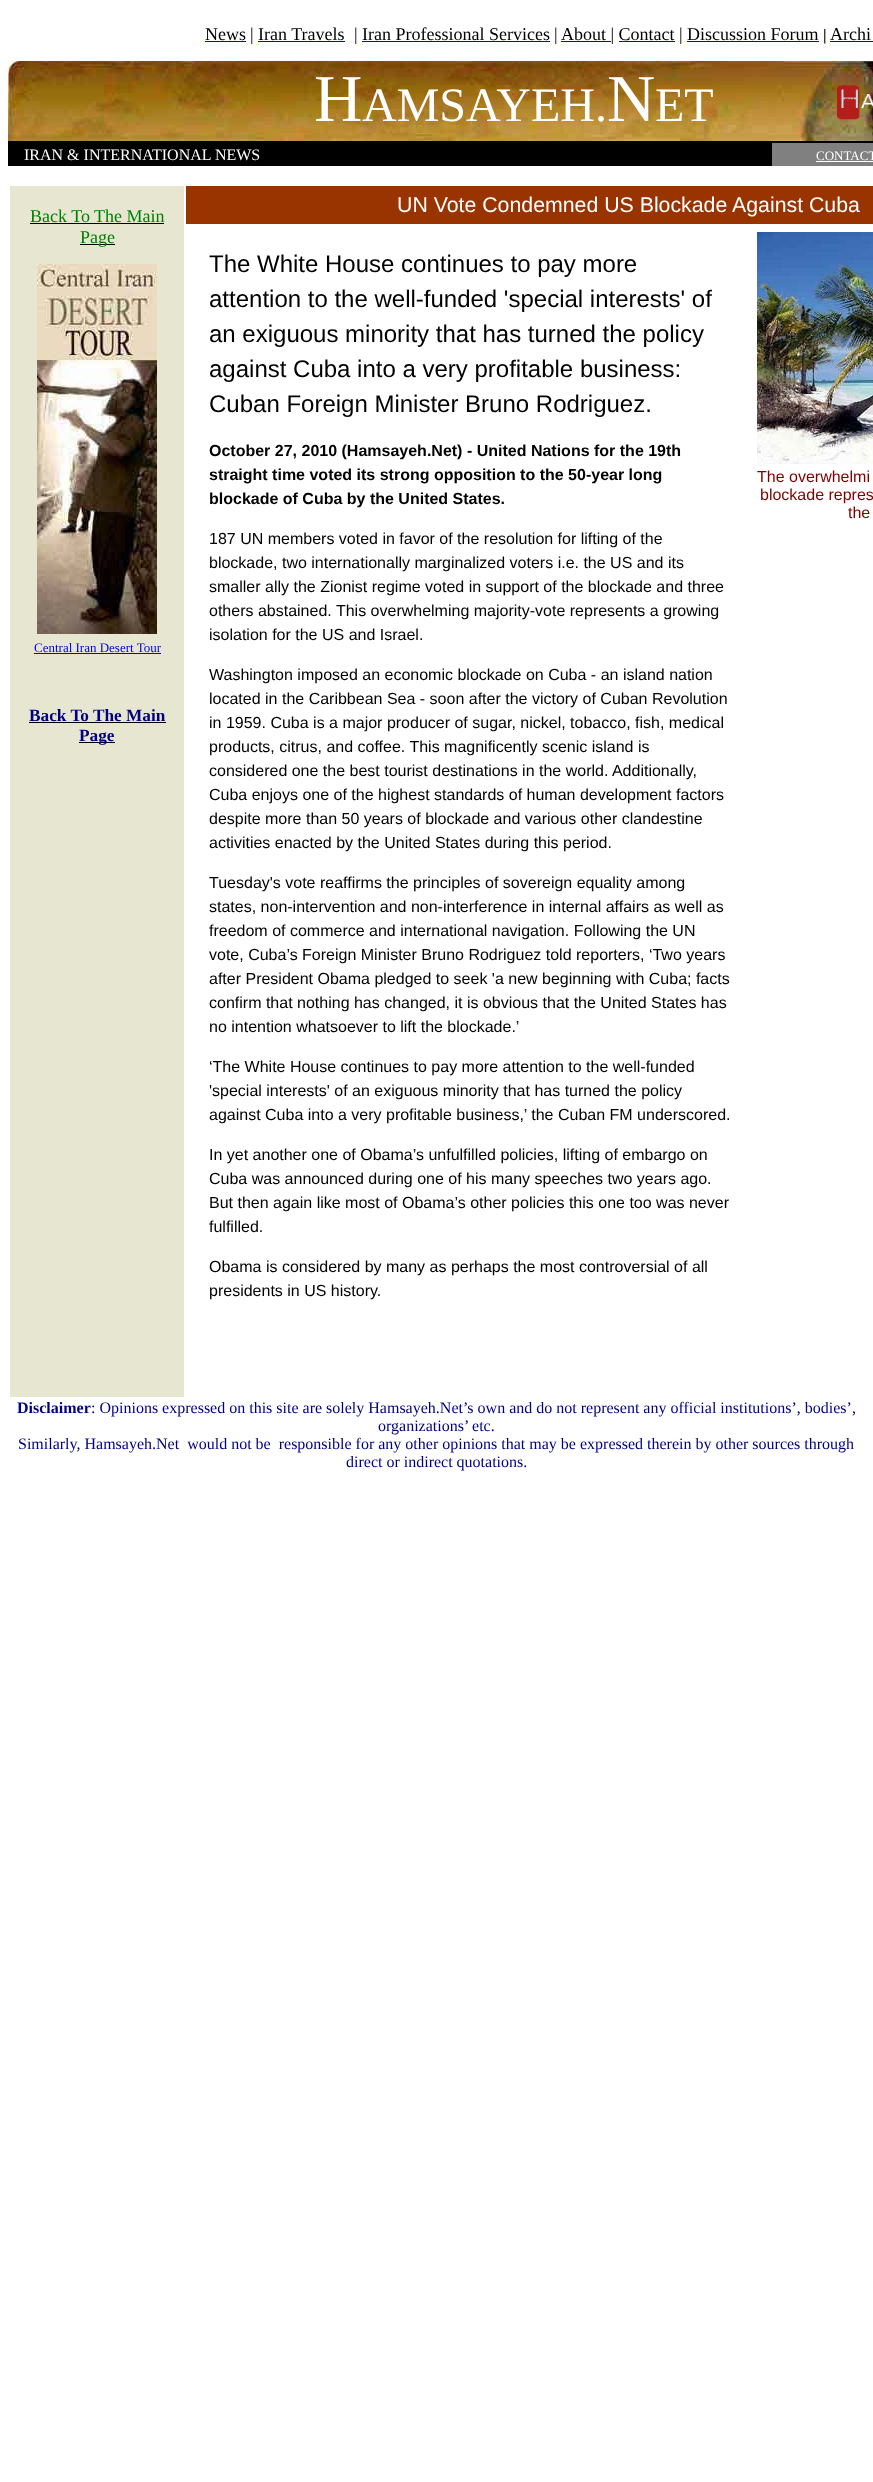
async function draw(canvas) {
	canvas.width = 873;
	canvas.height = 2482;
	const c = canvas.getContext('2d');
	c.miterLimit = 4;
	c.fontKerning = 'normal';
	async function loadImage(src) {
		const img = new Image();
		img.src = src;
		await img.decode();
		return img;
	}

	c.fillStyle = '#fff';
	c.fillRect(0, 0, 873, 2482);
	c.font = '18px Liberation Serif';
	c.fillStyle = '#000';
	c.fillText('News', 205, 40);
	c.fillStyle = '#00e';
	c.fillRect(205, 41, 41, 1);
	c.fillStyle = '#000';
	c.fillText('| Iran Travels', 250, 40);
	c.fillStyle = '#00e';
	c.fillRect(258, 41, 87, 1);
	c.fillStyle = '#000';
	c.fillText('| Iran Professional Services', 354, 40);
	c.fillStyle = '#00e';
	c.fillRect(362, 41, 188, 1);
	c.fillStyle = '#000';
	c.fillText('|', 554, 40);
	c.fillStyle = '#00e';
	c.fillRect(561, 41, 50, 1);
	c.fillStyle = '#000';
	c.fillText('About | Contact |', 561, 40);
	c.fillStyle = '#00e';
	c.fillRect(619, 41, 56, 1);
	c.fillStyle = '#000';
	c.fillText('Discussion Forum', 687, 40);
	c.fillStyle = '#00e';
	c.fillRect(687, 41, 132, 1);
	c.font = 'bold 16px Liberation Serif';
	c.fillStyle = '#000';
	c.fillText('|', 823, 40);
	c.font = '18px Liberation Serif';
	c.fillText('Archi', 830, 40);
	c.fillStyle = '#00e';
	c.fillRect(830, 41, 43, 1);
	c.drawImage(await loadImage('img1.png'), 8, 61, 865, 80);
	c.fillStyle = '#000';
	c.fillRect(8, 141, 865, 2);
	c.font = '67px Liberation Serif';
	c.fillStyle = '#fff';
	c.fillText('H', 314, 121);
	c.font = '48px Liberation Serif';
	c.fillText('AMSAYEH.', 362, 121);
	c.font = '67px Liberation Serif';
	c.fillText('N', 607, 121);
	c.font = '48px Liberation Serif';
	c.fillText('ET', 655, 121);
	c.drawImage(await loadImage('img2.png'), 837, 85, 36, 35);
	c.fillStyle = '#000';
	c.fillRect(8, 143, 764, 23);
	c.font = '16px Liberation Serif';
	c.fillStyle = '#fff';
	c.fillText('IRAN & INTERNATIONAL NEWS', 24, 160);
	c.fillStyle = '#808080';
	c.fillRect(772, 143, 101, 23);
	c.font = '13px Liberation Serif';
	c.fillStyle = '#fff';
	c.fillText('CONTACT', 816, 160);
	c.fillRect(816, 161, 57, 1);
	c.fillStyle = '#930';
	c.fillRect(186, 186, 687, 38);
	c.font = '21.3px Liberation Sans';
	c.fillStyle = '#fff';
	c.fillText('UN Vote Condemned US Blockade Against Cuba', 397, 212);
	c.fillStyle = '#e7e6d1';
	c.fillRect(10, 186, 174, 1211);
	c.font = '18px Liberation Serif';
	c.fillStyle = '#008000';
	c.fillText('Back To The Main', 30, 222);
	c.fillStyle = '#000';
	c.fillRect(30, 223, 134, 1);
	c.fillRect(80, 244, 35, 1);
	c.fillStyle = '#008000';
	c.fillText('Page', 80, 243);
	c.drawImage(await loadImage('img3.png'), 37, 264, 120, 370);
	c.font = '13px Liberation Serif';
	c.fillStyle = '#00e';
	c.fillText('Central Iran Desert Tour', 34, 652);
	c.fillRect(34, 653, 127, 1);
	c.font = 'bold 17.25px Liberation Serif';
	c.fillStyle = '#000080';
	c.fillText('Back To The Main', 29, 721);
	c.fillStyle = '#000';
	c.fillRect(29, 722, 137, 1);
	c.fillRect(79, 742, 36, 1);
	c.fillStyle = '#000080';
	c.fillText('Page', 79, 741);
	c.font = '24px Liberation Sans';
	c.fillStyle = '#000';
	for (const [text, x, y] of [
		['The White House continues to pay more', 209, 272],
		['attention to the well-funded \'special interests\' of', 209, 307],
		['an exiguous minority that has turned the policy', 209, 342],
		['against Cuba into a very profitable business:', 209, 377],
		['Cuban Foreign Minister Bruno Rodriguez.', 209, 412],
	]) {
		c.fillText(text, x, y);
	}
	c.font = 'bold 16px Liberation Sans';
	for (const [text, x, y] of [
		['October 27, 2010 (Hamsayeh.Net) - United Nations for the 19th', 209, 456],
		['straight time voted its strong opposition to the 50-year long', 209, 480],
		['blockade of Cuba by the United States.', 209, 504],
	]) {
		c.fillText(text, x, y);
	}
	c.font = '16px Liberation Sans';
	for (const [text, x, y] of [
		['187 UN members voted in favor of the resolution for lifting of the', 209, 544],
		['blockade, two internationally marginalized voters i.e. the US and its', 209, 568],
		['smaller ally the Zionist regime voted in support of the blockade and three', 209, 592],
		['others abstained. This overwhelming majority-vote represents a growing', 209, 616],
		['isolation for the US and Israel.', 209, 640],
		['Washington imposed an economic blockade on Cuba - an island nation', 209, 680],
		['located in the Caribbean Sea - soon after the victory of Cuban Revolution', 209, 704],
		['in 1959. Cuba is a major producer of sugar, nickel, tobacco, fish, medical', 209, 728],
		['products, citrus, and coffee. This magnificently scenic island is', 209, 752],
		['considered one the best tourist destinations in the world. Additionally,', 209, 776],
		['Cuba enjoys one of the highest standards of human development factors', 209, 800],
		['despite more than 50 years of blockade and various other clandestine', 209, 824],
		['activities enacted by the United States during this period.', 209, 848],
		['Tuesday\'s vote reaffirms the principles of sovereign equality among', 209, 888],
		['states, non-intervention and non-interference in internal affairs as well as', 209, 912],
		['freedom of commerce and international navigation. Following the UN', 209, 936],
		['vote, Cuba’s Foreign Minister Bruno Rodriguez told reporters, ‘Two years', 209, 960],
		['after President Obama pledged to seek \'a new beginning with Cuba; facts', 209, 984],
		['confirm that nothing has changed, it is obvious that the United States has', 209, 1008],
		['no intention whatsoever to lift the blockade.’', 209, 1032],
		['‘The White House continues to pay more attention to the well-funded', 209, 1072],
		['\'special interests\' of an exiguous minority that has turned the policy', 209, 1096],
		['against Cuba into a very profitable business,’ the Cuban FM underscored.', 209, 1120],
		['In yet another one of Obama’s unfulfilled policies, lifting of embargo on', 209, 1160],
		['Cuba was announced during one of his many speeches two years ago.', 209, 1184],
		['But then again like most of Obama’s other policies this one too was never', 209, 1208],
		['fulfilled.', 209, 1232],
		['Obama is considered by many as perhaps the most controversial of all', 209, 1272],
		['presidents in US history.', 209, 1296],
	]) {
		c.fillText(text, x, y);
	}
	c.drawImage(await loadImage('img4.png'), 757, 232, 116, 232);
	c.fillStyle = '#800000';
	for (const [text, x, y] of [
		['The overwhelmi', 757, 482],
		['blockade repres', 760, 500],
		['the', 848, 518],
	]) {
		c.fillText(text, x, y);
	}
	c.font = 'bold 16px Liberation Serif';
	c.fillStyle = '#000080';
	c.fillText('Disclaimer', 17, 1413);
	c.font = '16px Liberation Serif';
	for (const [text, x, y] of [
		[': Opinions expressed on this site are solely Hamsayeh.Net’s own and do not represent any official institutions’, bodies’,', 91, 1413],
		['organizations’ etc.', 378, 1431],
		['Similarly, Hamsayeh.Net  would not be  responsible for any other opinions that may be expressed therein by other sources through', 18, 1449],
		['direct or indirect quotations.', 346, 1467],
	]) {
		c.fillText(text, x, y);
	}
}

draw(document.querySelector('canvas'));
